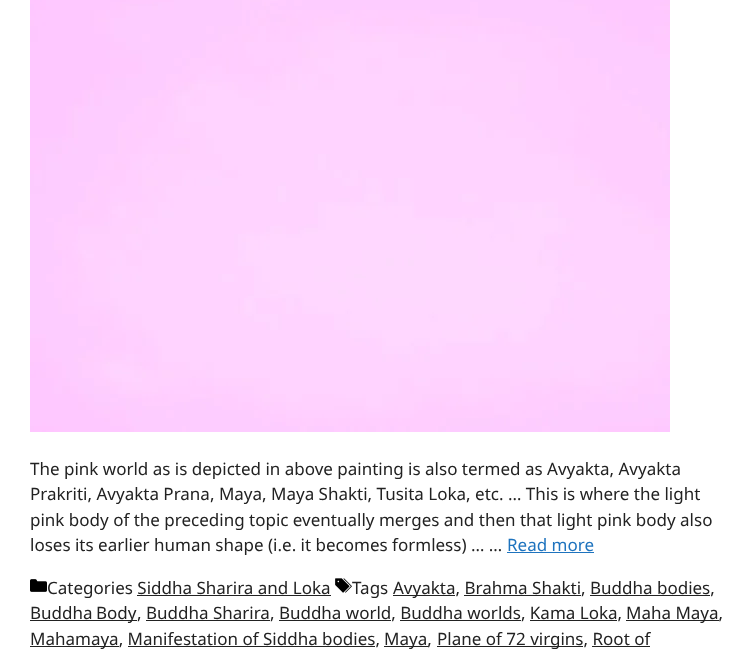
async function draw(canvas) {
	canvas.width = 754;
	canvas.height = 651;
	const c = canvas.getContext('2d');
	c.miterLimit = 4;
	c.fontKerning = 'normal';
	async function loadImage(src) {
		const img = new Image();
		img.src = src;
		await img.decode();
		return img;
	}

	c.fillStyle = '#fff';
	c.fillRect(0, 0, 754, 651);
	c.drawImage(await loadImage('img1.png'), 30, 0, 640, 432);
	c.font = '17px Noto Sans';
	c.fillStyle = '#222';
	for (const [text, x, y] of [
		['The pink world as is depicted in above painting is also termed as Avyakta, Avyakta', 30, 475],
		['Prakriti, Avyakta Prana, Maya, Maya Shakti, Tusita Loka, etc. … This is where the light', 30, 500],
		['pink body of the preceding topic eventually merges and then that light pink body also', 30, 526],
		['loses its earlier human shape (i.e. it becomes formless) … …', 30, 551],
	]) {
		c.fillText(text, x, y);
	}
	c.fillStyle = '#1e73be';
	c.fillText('Read more', 507, 551);
	c.fillRect(507, 552, 87, 1);
	c.drawImage(await loadImage('img2.png'), 30, 579, 17, 13);
	c.fillStyle = '#222';
	c.fillText('Categories Siddha Sharira and Loka', 47, 594);
	c.fillRect(137, 595, 194, 1);
	c.drawImage(await loadImage('img3.png'), 335, 578, 17, 15);
	c.fillText('Tags', 352, 594);
	c.fillRect(393, 595, 62, 1);
	c.fillText('Avyakta, Brahma Shakti, Buddha bodies,', 393, 594);
	for (const [x, y, w, h, color] of [
		[464, 595, 117, 1, '#222'],
		[590, 595, 120, 1, '#222'],
		[30, 620, 107, 1, '#222'],
	]) {
		c.fillStyle = color;
		c.fillRect(x, y, w, h);
	}
	c.wordSpacing = '-1px';
	c.fillText('Buddha Body', 30, 619);
	c.wordSpacing = '0px';
	c.fillText(', Buddha Sharira, Buddha world, Buddha worlds, Kama Loka,', 137, 619);
	for (const [x, y, w, h, color] of [
		[146, 620, 124, 1, '#222'],
		[279, 620, 112, 1, '#222'],
		[400, 620, 121, 1, '#222'],
		[530, 620, 87, 1, '#222'],
		[626, 620, 93, 1, '#222'],
	]) {
		c.fillStyle = color;
		c.fillRect(x, y, w, h);
	}
	c.fillText('Maha Maya,', 626, 619);
	c.fillRect(30, 646, 89, 1);
	c.fillText('Mahamaya, Manifestation of Siddha bodies,', 30, 645);
	c.fillRect(128, 646, 247, 1);
	c.fillRect(384, 646, 44, 1);
	c.fillText('Maya,', 384, 645);
	c.fillRect(437, 646, 146, 1);
	c.fillText('Plane of 72 virgins, Root of', 437, 645);
	c.fillRect(592, 646, 58, 1);
}

draw(document.querySelector('canvas'));
